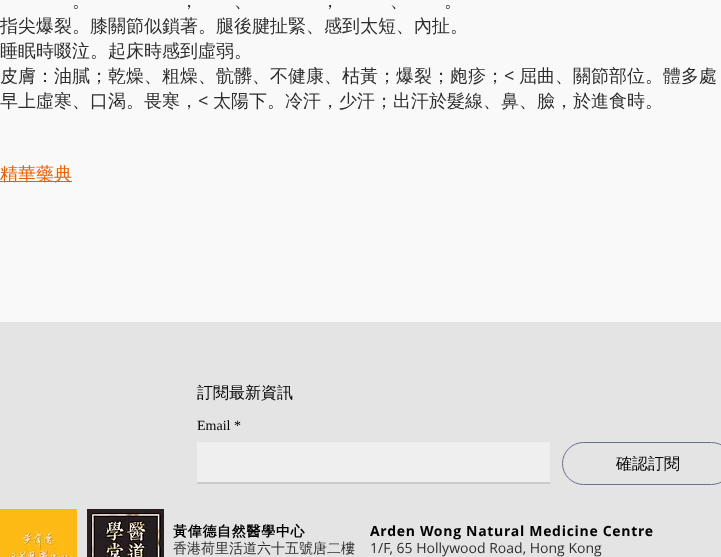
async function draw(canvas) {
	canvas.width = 721;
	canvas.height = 557;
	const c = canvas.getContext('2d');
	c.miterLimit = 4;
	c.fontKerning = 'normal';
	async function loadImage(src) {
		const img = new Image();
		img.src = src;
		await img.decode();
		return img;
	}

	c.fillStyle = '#f9f9f9';
	c.fillRect(0, 0, 721, 557);
	c.font = '500 18px WenQuanYi Zen Hei';
	c.fillStyle = '#2f2e2e';
	for (const [text, x, y] of [
		['。', 72, 7],
		['，', 180, 7],
		['、', 234, 7],
		['，', 321, 7],
		['、', 390, 7],
		['。', 444, 7],
		['指尖爆裂。膝關節似鎖著。腿後腱扯緊、感到太短、內扯。', 0, 32],
		['睡眠時啜泣。起床時感到虛弱。', 0, 57],
		['皮膚：油膩；乾燥、粗燥、骯髒、不健康、枯黃；爆裂；皰疹；', 0, 82],
	]) {
		c.fillText(text, x, y);
	}
	c.font = '18px Open Sans';
	c.fillText('<', 504, 82);
	c.font = '500 18px WenQuanYi Zen Hei';
	c.fillText('屈曲、關節部位。體多處', 519, 82);
	c.fillText('早上虛寒、口渴。畏寒，', 0, 107);
	c.font = '18px Open Sans';
	c.fillText('<', 198, 107);
	c.font = '500 18px WenQuanYi Zen Hei';
	c.fillText('太陽下。冷汗，少汗；出汗於髮線、鼻、臉，於進食時。', 213, 107);
	c.fillStyle = '#e86100';
	c.fillRect(0, 181, 72, 1);
	c.fillText('精華藥典', 0, 180);
	c.fillStyle = '#e4e4e4';
	c.fillRect(0, 322, 721, 235);
	c.font = '500 16px WenQuanYi Zen Hei';
	c.fillStyle = '#000';
	c.fillText('訂閱最新資訊', 197, 398);
	c.font = '14px Liberation Serif';
	c.fillText('Email', 197, 430);
	c.fillText('*', 234, 430);
	c.fillStyle = '#efefef';
	c.fillRect(197, 442, 353, 40);
	c.fillStyle = '#cbcbcb';
	c.fillRect(197, 482, 353, 2);
	c.beginPath();
	c.roundRect(562.5, 442.5, 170, 42, 21);
	c.strokeStyle = '#69718b';
	c.stroke();
	c.font = '500 16px WenQuanYi Zen Hei';
	c.fillStyle = '#000';
	c.fillText('確認訂閱', 616, 469);
	c.drawImage(await loadImage('img1.png'), 0, 509, 77, 48);
	c.drawImage(await loadImage('img2.png'), 87, 509, 77, 48);
	c.letterSpacing = '0.7px';
	c.font = 'bold 14px WenQuanYi Zen Hei';
	c.fillText('黃偉德自然醫學中心', 173, 536);
	c.font = 'bold 14px Open Sans';
	c.fillText('Arden Wong Natural Medicine Centre', 370, 536);
	c.letterSpacing = '0px';
	c.font = '500 14px WenQuanYi Zen Hei';
	c.fillStyle = '#2f2e2e';
	c.fillText('香港荷里活道六十五號唐二樓', 173, 553);
	c.font = '14px Open Sans';
	c.fillText('1/F, 65 Hollywood Road, Hong Kong', 370, 553);
}

draw(document.querySelector('canvas'));
